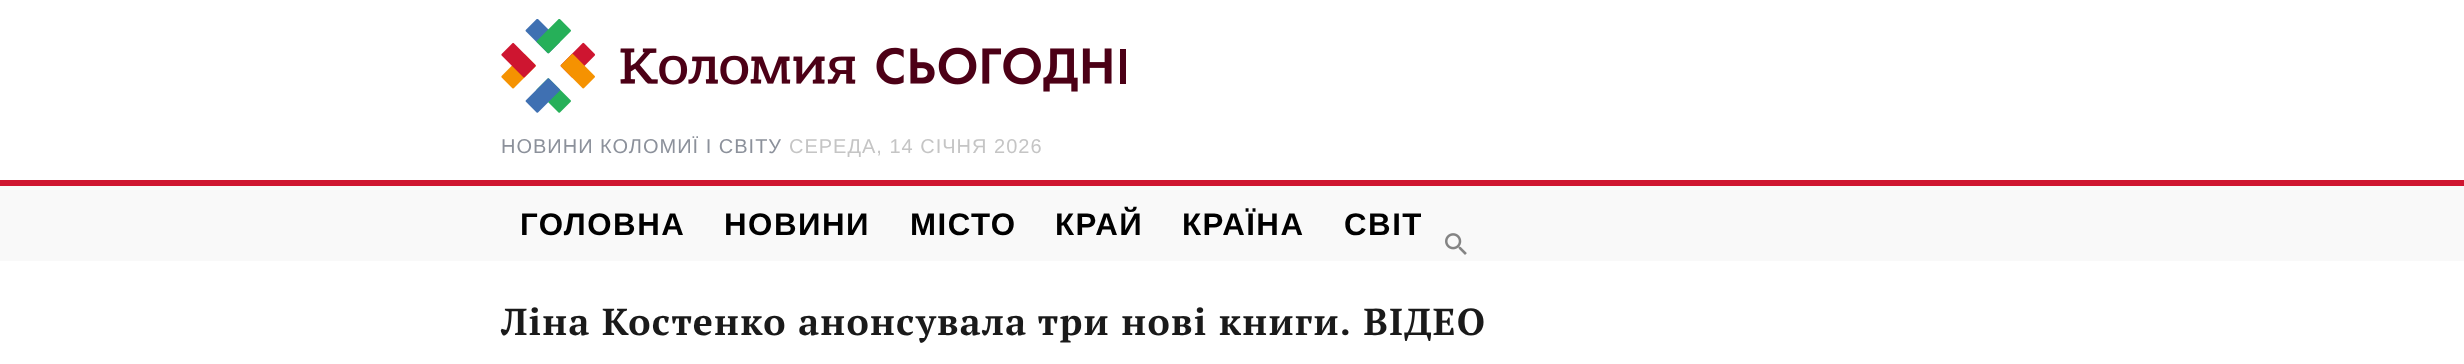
async function draw(canvas) {
	canvas.width = 2464;
	canvas.height = 364;
	const c = canvas.getContext('2d');
	c.miterLimit = 4;
	c.fontKerning = 'normal';
	async function loadImage(src) {
		const img = new Image();
		img.src = src;
		await img.decode();
		return img;
	}

	c.fillStyle = '#fff';
	c.fillRect(0, 0, 2464, 364);
	c.drawImage(await loadImage('img1.png'), 501, 19, 625, 94);
	c.letterSpacing = '1px';
	c.font = '20px Liberation Sans';
	c.fillStyle = '#8c919b';
	c.fillText('НОВИНИ КОЛОМИЇ І СВІТУ', 501, 153);
	c.fillStyle = '#c5c5c5';
	c.fillText('СЕРЕДА, 14 СІЧНЯ 2026', 789, 153);
	c.fillStyle = '#f9f9f9';
	c.fillRect(0, 186, 2464, 75);
	c.fillStyle = '#cf1630';
	c.fillRect(0, 180, 2464, 6);
	c.letterSpacing = '1.5px';
	c.font = 'bold 31.25px Liberation Sans';
	c.fillStyle = '#000';
	for (const [text, x, y] of [
		['ГОЛОВНА', 520, 235],
		['НОВИНИ', 724, 235],
		['МІСТО', 910, 235],
		['КРАЙ', 1055, 235],
		['КРАЇНА', 1182, 235],
		['СВІТ', 1344, 235],
	]) {
		c.fillText(text, x, y);
	}
	c.drawImage(await loadImage('img2.png'), 1445, 233, 22, 22);
	c.letterSpacing = '1.25px';
	c.font = 'bold 37.5px PT Serif';
	c.fillStyle = '#1a1a1a';
	c.fillText('Ліна Костенко анонсувала три нові книги. ВІДЕО', 501, 335);
}

draw(document.querySelector('canvas'));
